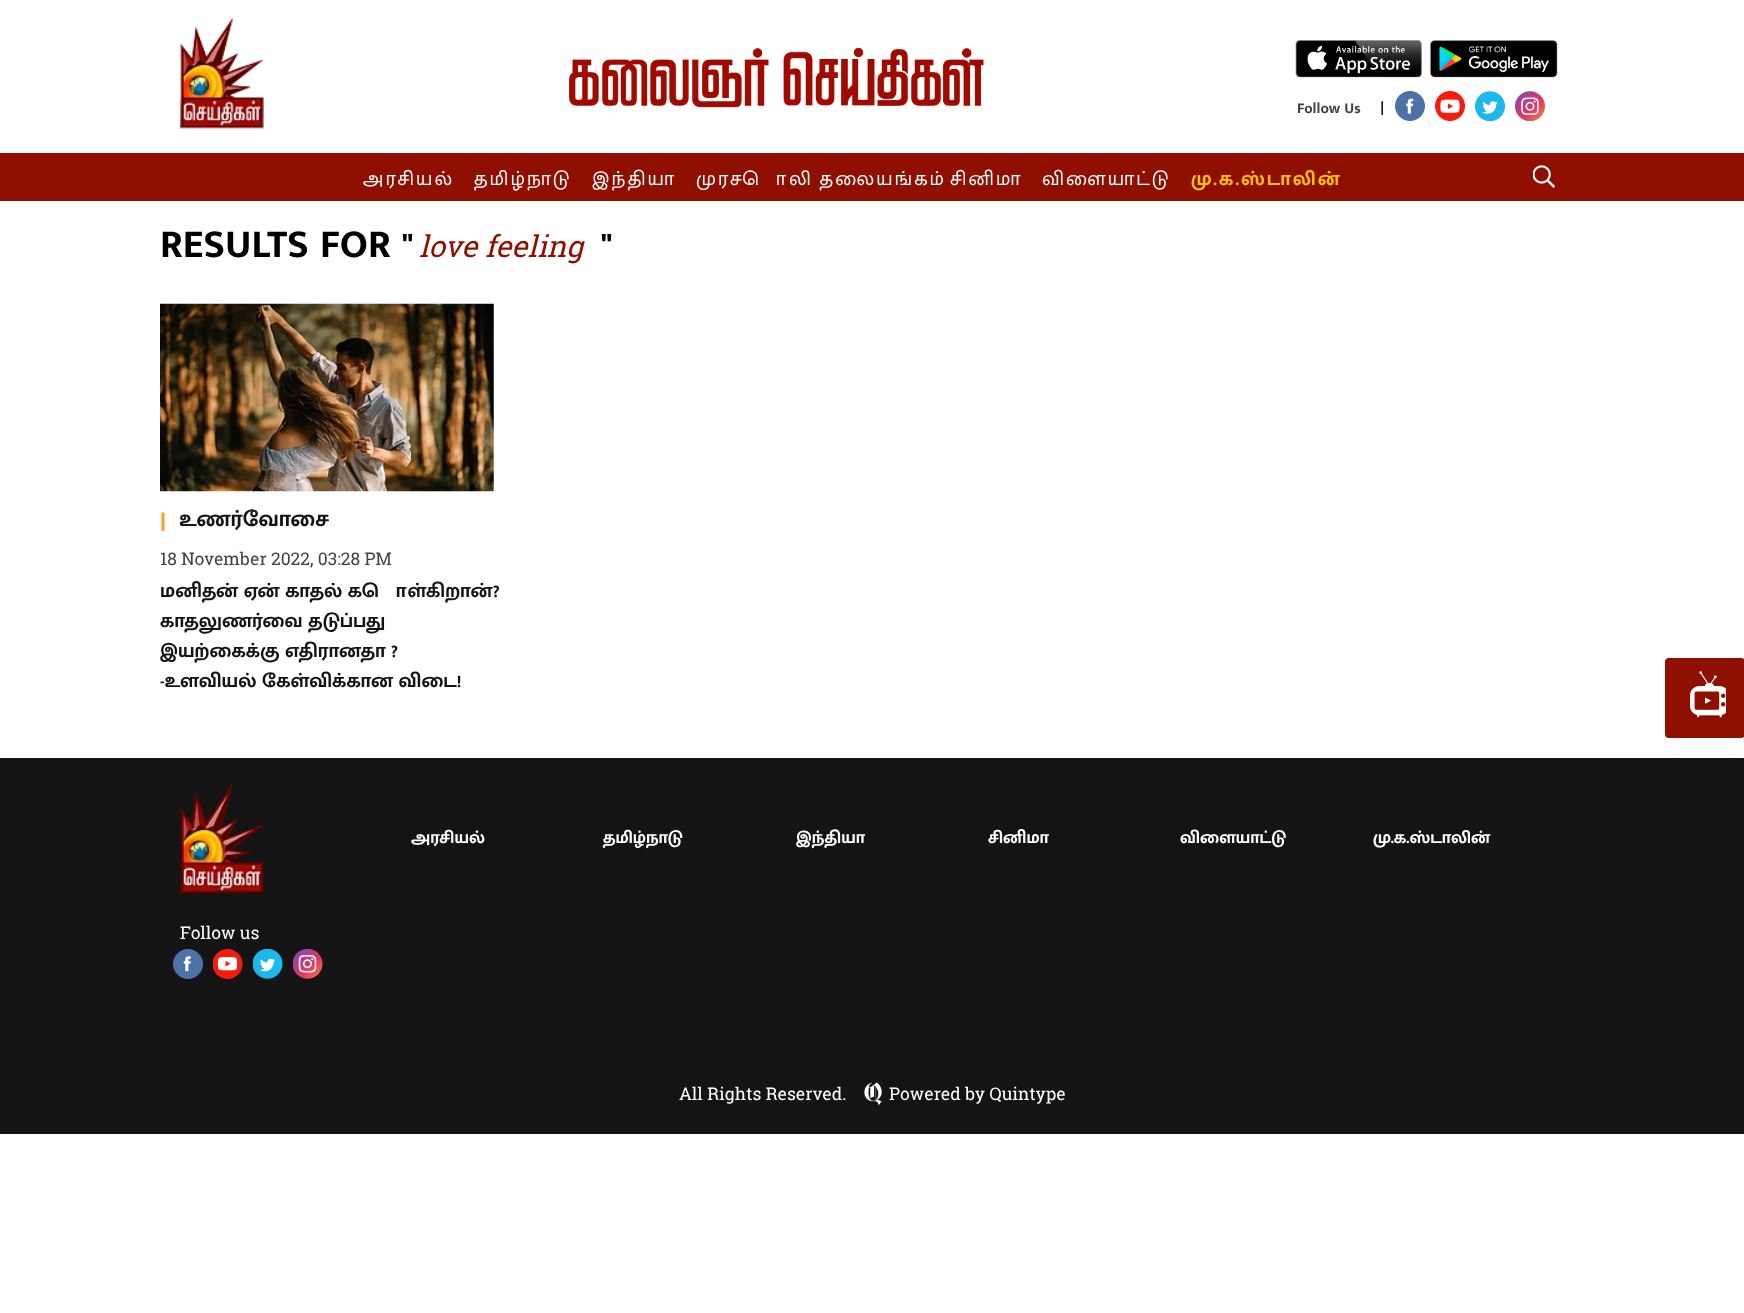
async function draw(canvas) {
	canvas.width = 1744;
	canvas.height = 1313;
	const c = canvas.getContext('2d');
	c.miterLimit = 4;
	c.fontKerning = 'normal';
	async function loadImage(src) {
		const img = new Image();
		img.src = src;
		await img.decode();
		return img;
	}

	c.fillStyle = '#fff';
	c.fillRect(0, 0, 1744, 1313);
	c.drawImage(await loadImage('img1.png'), 180, 17, 84, 112);
	c.drawImage(await loadImage('img2.png'), 569, 48, 415, 60);
	c.drawImage(await loadImage('img3.png'), 1295, 40, 127, 38);
	c.drawImage(await loadImage('img4.png'), 1430, 40, 128, 38);
	c.font = 'bold 15px Mukta Malar';
	c.fillStyle = '#434343';
	c.fillText('Follow Us', 1297, 113);
	c.font = '20px Mukta Malar';
	c.fillStyle = '#000';
	c.fillText('|', 1380, 113);
	c.drawImage(await loadImage('img5.png'), 1395, 91, 30, 30);
	c.drawImage(await loadImage('img6.png'), 1435, 91, 30, 30);
	c.drawImage(await loadImage('img7.png'), 1475, 91, 30, 30);
	c.drawImage(await loadImage('img8.png'), 1515, 91, 30, 30);
	c.fillStyle = '#8f0f01';
	c.fillRect(0, 153, 1744, 48);
	c.letterSpacing = '2.1px';
	c.fillStyle = '#fff';
	for (const [text, x, y] of [
		['அரசியல்', 363, 185],
		['தமிழ்நாடு', 474, 185],
		['இந்தியா', 592, 185],
	]) {
		c.fillText(text, x, y);
	}
	c.wordSpacing = '-1px';
	c.fillText('முரசொலி தலையங்கம்', 696, 185);
	c.wordSpacing = '0px';
	c.fillText('சினிமா', 950, 185);
	c.fillText('விளையாட்டு', 1042, 185);
	c.font = 'bold 20px Mukta Malar';
	c.fillStyle = '#ffc007';
	c.fillText('மு.க.ஸ்டாலின்', 1191, 185);
	c.drawImage(await loadImage('img9.png'), 1533, 165, 22, 23);
	c.letterSpacing = '0px';
	c.font = 'bold 40px Mukta Malar';
	c.fillStyle = '#000';
	c.fillText('RESULTS FOR "', 160, 257);
	c.font = 'italic 30px Roboto Slab';
	c.fillStyle = '#8f0f01';
	c.fillText('love feeling', 419, 257);
	c.font = 'bold 40px Mukta Malar';
	c.fillStyle = '#000';
	c.fillText('"', 601, 257);
	c.drawImage(await loadImage('img10.png'), 160, 303, 334, 189);
	c.font = 'bold 25px Mukta Malar';
	c.fillStyle = '#faa02f';
	c.fillText('|', 160, 528);
	c.font = 'bold 22.5px Mukta Malar';
	c.fillStyle = '#141414';
	c.fillText('உணர்வோசை', 179, 526);
	c.font = '17.5px Roboto Slab';
	c.fillStyle = '#434343';
	c.fillText('18 November 2022, 03:28 PM', 160, 565);
	c.font = 'bold 20px Mukta Malar';
	c.fillStyle = '#141414';
	for (const [text, x, y] of [
		['மனிதன் ஏன் காதல் கொள்கிறான்?', 160, 597],
		['காதலுணர்வை தடுப்பது', 160, 627],
		['இயற்கைக்கு எதிரானதா ?', 160, 657],
		['-உளவியல் கேள்விக்கான விடை!', 160, 687],
	]) {
		c.fillText(text, x, y);
	}
	c.fillStyle = '#8f0f01';
	c.beginPath();
	c.roundRect(1665, 658, 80, 80, 4);
	c.fill();
	c.drawImage(await loadImage('img11.png'), 1690, 671, 36, 47);
	c.fillStyle = '#141414';
	c.fillRect(0, 758, 1744, 376);
	c.font = 'bold 17.5px Mukta Malar';
	c.fillStyle = '#fff';
	for (const [text, x, y] of [
		['அரசியல்', 411, 843],
		['தமிழ்நாடு', 603, 843],
		['இந்தியா', 796, 843],
		['சினிமா', 988, 843],
		['விளையாட்டு', 1180, 843],
		['மு.க.ஸ்டாலின்', 1373, 843],
	]) {
		c.fillText(text, x, y);
	}
	c.drawImage(await loadImage('img12.png'), 180, 782, 84, 112);
	c.font = '17.5px Roboto Slab';
	c.fillText('Follow us', 180, 939);
	c.drawImage(await loadImage('img13.png'), 173, 949, 30, 30);
	c.drawImage(await loadImage('img14.png'), 213, 949, 30, 30);
	c.drawImage(await loadImage('img15.png'), 253, 949, 30, 30);
	c.drawImage(await loadImage('img16.png'), 293, 949, 30, 30);
	c.fillText('All Rights Reserved.', 679, 1100);
	c.drawImage(await loadImage('img17.png'), 864, 1082, 19, 23);
	c.fillText('Powered by Quintype', 889, 1100);
}

draw(document.querySelector('canvas'));
